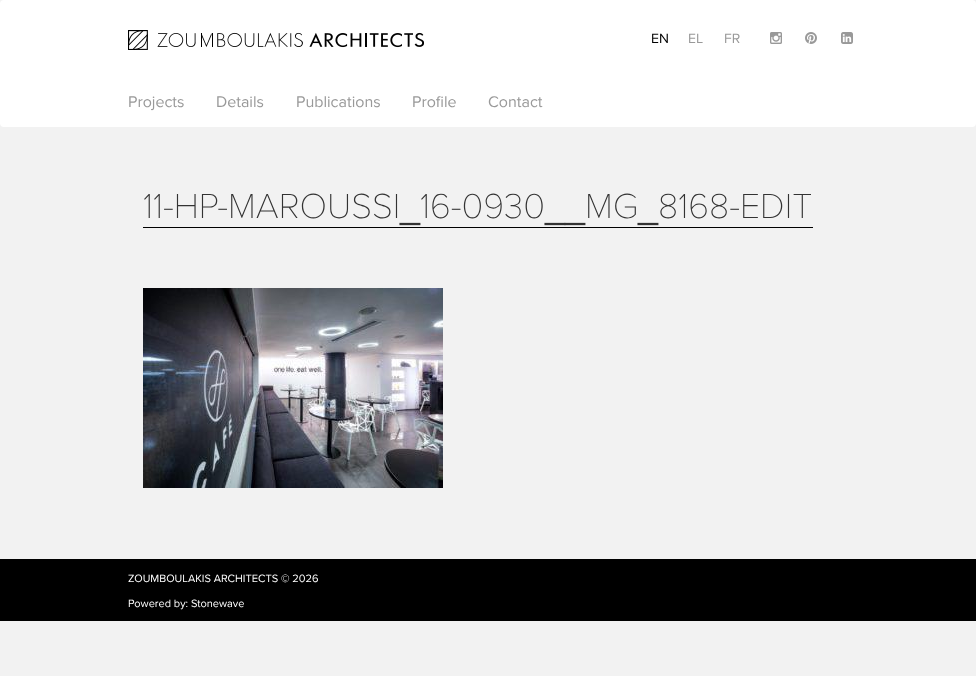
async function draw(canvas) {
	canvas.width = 976;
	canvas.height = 676;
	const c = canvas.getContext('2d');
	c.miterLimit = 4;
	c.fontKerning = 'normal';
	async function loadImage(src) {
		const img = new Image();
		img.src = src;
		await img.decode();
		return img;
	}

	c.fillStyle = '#f2f2f2';
	c.fillRect(0, 0, 976, 676);
	c.fillStyle = '#fff';
	c.beginPath();
	c.roundRect(0, 0, 976, 127, 4);
	c.fill();
	c.drawImage(await loadImage('img1.png'), 128, 30, 296, 20);
	c.font = '14px Proxima Nova';
	c.fillStyle = '#000';
	c.fillText('EN', 651, 43);
	c.fillStyle = '#999';
	c.fillText('EL', 688, 43);
	c.fillText('FR', 724, 43);
	c.drawImage(await loadImage('img2.png'), 770, 32, 12, 12);
	c.drawImage(await loadImage('img3.png'), 805, 32, 12, 12);
	c.drawImage(await loadImage('img4.png'), 841, 32, 12, 12);
	c.font = '16px Proxima Nova';
	for (const [text, x, y] of [
		['Projects', 128, 107],
		['Details', 216, 107],
		['Publications', 296, 107],
		['Profile', 412, 107],
		['Contact', 488, 107],
	]) {
		c.fillText(text, x, y);
	}
	c.fillStyle = '#000';
	c.fillRect(143, 227, 670, 1);
	c.font = '100 36px Proxima Nova';
	c.fillStyle = '#333';
	for (const [text, x, y] of [
		['11-HP-MAROUSSI', 143, 218],
		['16-0930', 420, 218],
		['MG', 585, 218],
		['8168-EDIT', 658, 218],
	]) {
		c.fillText(text, x, y);
	}
	c.font = '36px Liberation Sans';
	for (const [text, x, y] of [
		['_', 400, 218],
		['__', 545, 218],
		['_', 638, 218],
	]) {
		c.fillText(text, x, y);
	}
	c.drawImage(await loadImage('img5.png'), 143, 288, 300, 200);
	c.fillStyle = '#000';
	c.fillRect(0, 559, 976, 62);
	c.font = '11px Proxima Nova';
	c.fillStyle = '#fff';
	c.fillText('ZOUMBOULAKIS ARCHITECTS © 2026', 128, 582);
	c.fillText('Powered by: Stonewave', 128, 607);
}

draw(document.querySelector('canvas'));
